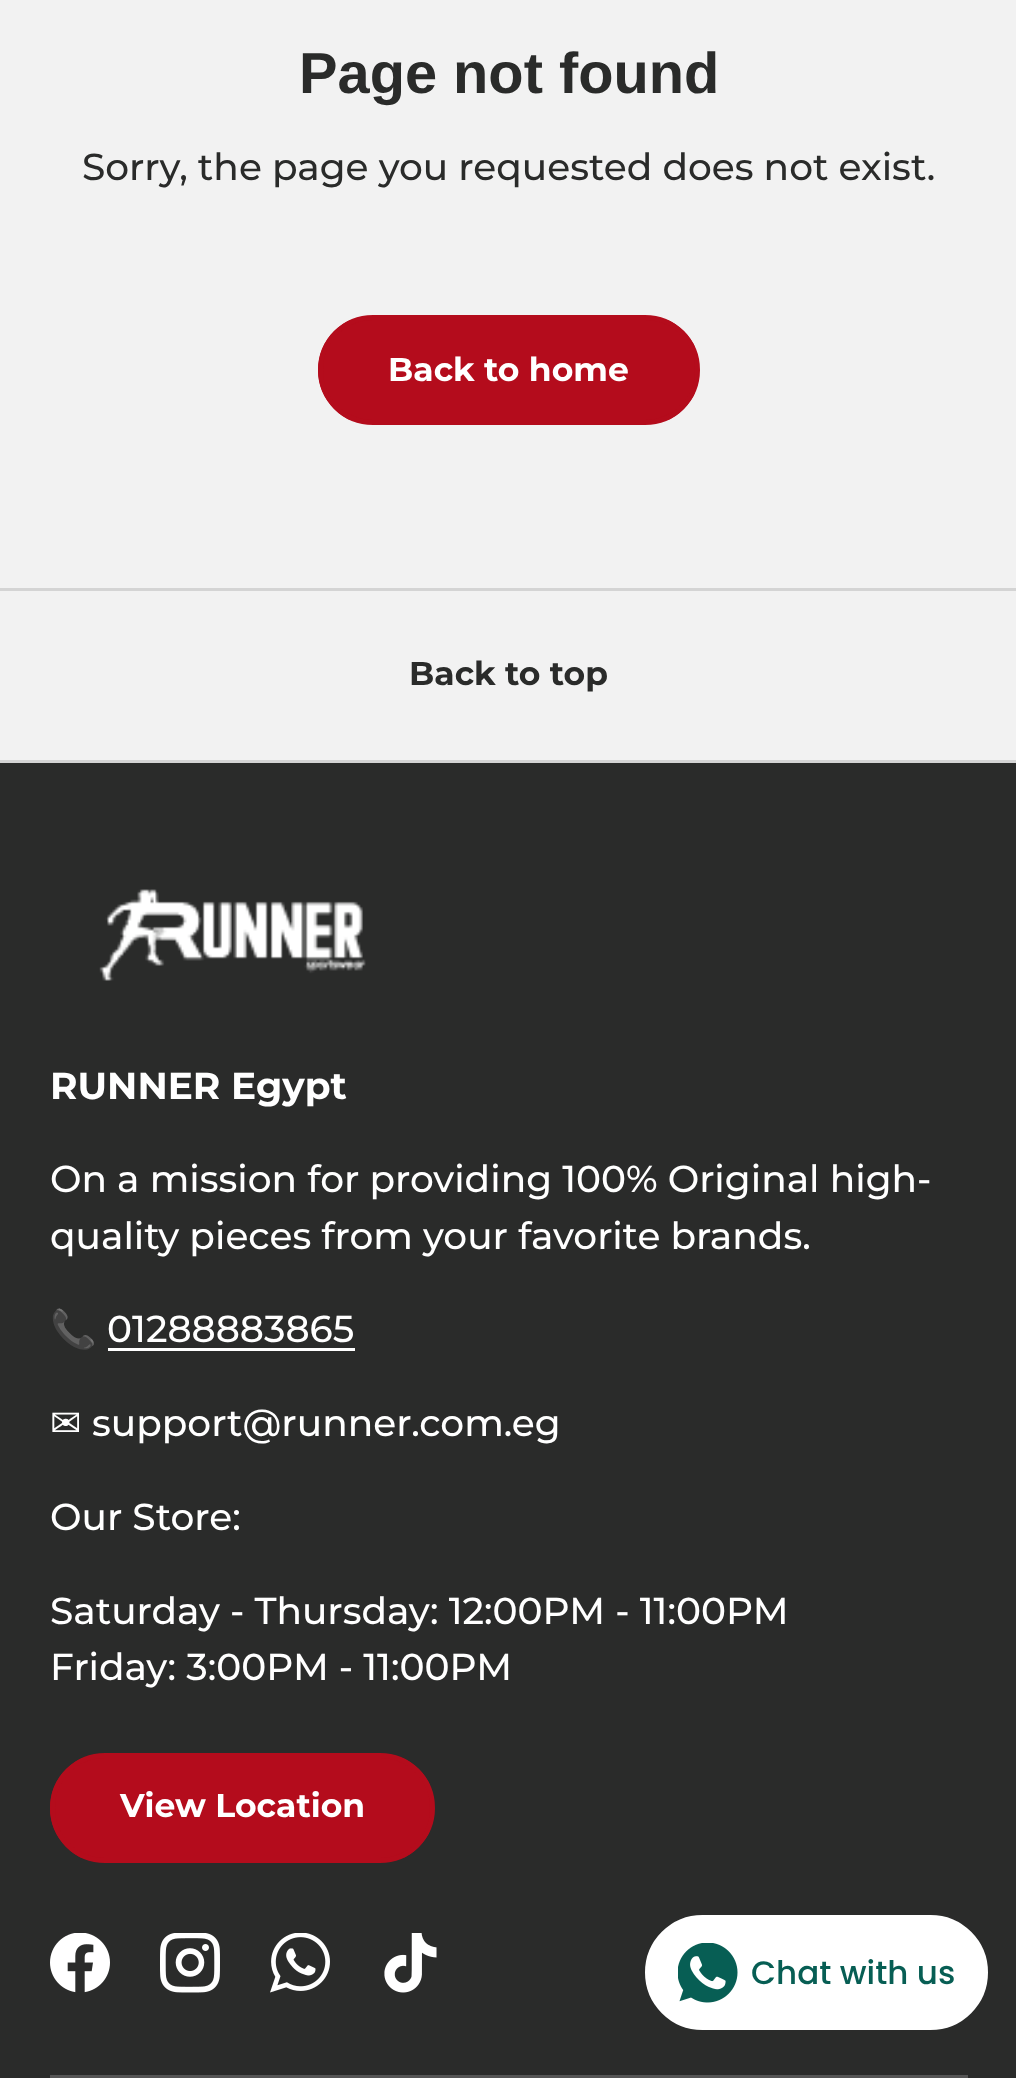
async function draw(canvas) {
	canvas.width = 1016;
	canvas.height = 2078;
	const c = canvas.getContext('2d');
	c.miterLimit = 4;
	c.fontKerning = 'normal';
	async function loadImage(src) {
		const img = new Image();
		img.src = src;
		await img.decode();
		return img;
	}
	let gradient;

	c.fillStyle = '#f2f2f2';
	c.fillRect(0, 0, 1016, 2078);
	c.font = 'bold 57.75px Liberation Sans';
	c.fillStyle = '#2a2b2a';
	c.fillText('Page not found', 299, 93);
	c.font = '500 37.5px Montserrat';
	c.fillText('Sorry, the page you requested does not exist.', 82, 180);
	c.save();
	c.beginPath();
	c.roundRect(318, 315, 382, 110, 55);
	c.clip();
	gradient = c.createLinearGradient(-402, 236, 674, 504);
	gradient.addColorStop(0.6, '#cb3342');
	gradient.addColorStop(0.6, '#b40c1c');
	gradient.addColorStop(1, '#b40c1c');
	c.fillStyle = gradient;
	c.fillRect(318, 320, 377, 100);
	c.restore();
	c.beginPath();
	c.roundRect(320.5, 317.5, 377, 105, 52.5);
	c.strokeStyle = '#b40c1c';
	c.lineWidth = 5;
	c.stroke();
	c.font = 'bold 33px Montserrat';
	c.fillStyle = '#fff';
	c.fillText('Back to home', 388, 381);
	c.fillStyle = '#d4d4d4';
	c.fillRect(0, 588, 1016, 3);
	c.fillRect(0, 760, 1016, 3);
	c.fillStyle = '#2a2b2a';
	c.fillText('Back to top', 409, 685);
	c.fillRect(0, 763, 1016, 1315);
	c.drawImage(await loadImage('img1.png'), 99, 889, 267, 92);
	c.font = 'bold 37.5px Montserrat';
	c.fillStyle = '#fff';
	c.fillText('RUNNER Egypt', 50, 1099);
	c.font = '500 37.5px Montserrat';
	c.fillText('On a mission for providing 100% Original high-', 50, 1192);
	c.fillText('quality pieces from your favorite brands.', 50, 1249);
	c.font = '37.5px Noto Color Emoji';
	c.fillText('📞', 50, 1342);
	c.font = '500 37.5px Montserrat';
	c.fillText('01288883865', 107, 1342);
	c.fillRect(108, 1348, 247, 3);
	c.font = '37.5px DejaVu Sans';
	c.fillText('✉', 50, 1436);
	c.font = '500 37.5px Montserrat';
	for (const [text, x, y] of [
		['support@runner.com.eg', 92, 1436],
		['Our Store:', 50, 1530],
		['Saturday - Thursday: 12:00PM - 11:00PM', 50, 1624],
		['Friday: 3:00PM - 11:00PM', 50, 1680],
	]) {
		c.fillText(text, x, y);
	}
	c.save();
	c.beginPath();
	c.roundRect(50, 1753, 385, 110, 55);
	c.clip();
	gradient = c.createLinearGradient(-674, 1673, 409, 1942);
	gradient.addColorStop(0.6, '#cb3342');
	gradient.addColorStop(0.6, '#b40c1c');
	gradient.addColorStop(1, '#b40c1c');
	c.fillStyle = gradient;
	c.fillRect(50, 1758, 380, 100);
	c.restore();
	c.beginPath();
	c.roundRect(52.5, 1755.5, 380, 105, 52.5);
	c.stroke();
	c.font = 'bold 33px Montserrat';
	c.fillText('View Location', 120, 1817);
	c.drawImage(await loadImage('img2.png'), 50, 1933, 60, 60);
	c.drawImage(await loadImage('img3.png'), 160, 1933, 60, 60);
	c.drawImage(await loadImage('img4.png'), 270, 1933, 60, 60);
	c.drawImage(await loadImage('img5.png'), 384, 1933, 53, 60);
	c.fillStyle = '#555';
	c.fillRect(50, 2075, 918, 3);
	c.fillStyle = '#fff';
	c.beginPath();
	c.roundRect(646.5, 1916.5, 340, 112, 56);
	c.fill();
	c.strokeStyle = '#fff';
	c.lineWidth = 3;
	c.stroke();
	c.drawImage(await loadImage('img6.png'), 678, 1943, 60, 60);
	c.font = '500 32.5px Poppins';
	c.fillStyle = '#075e54';
	c.fillText('Chat with us', 751, 1984);
}

draw(document.querySelector('canvas'));
